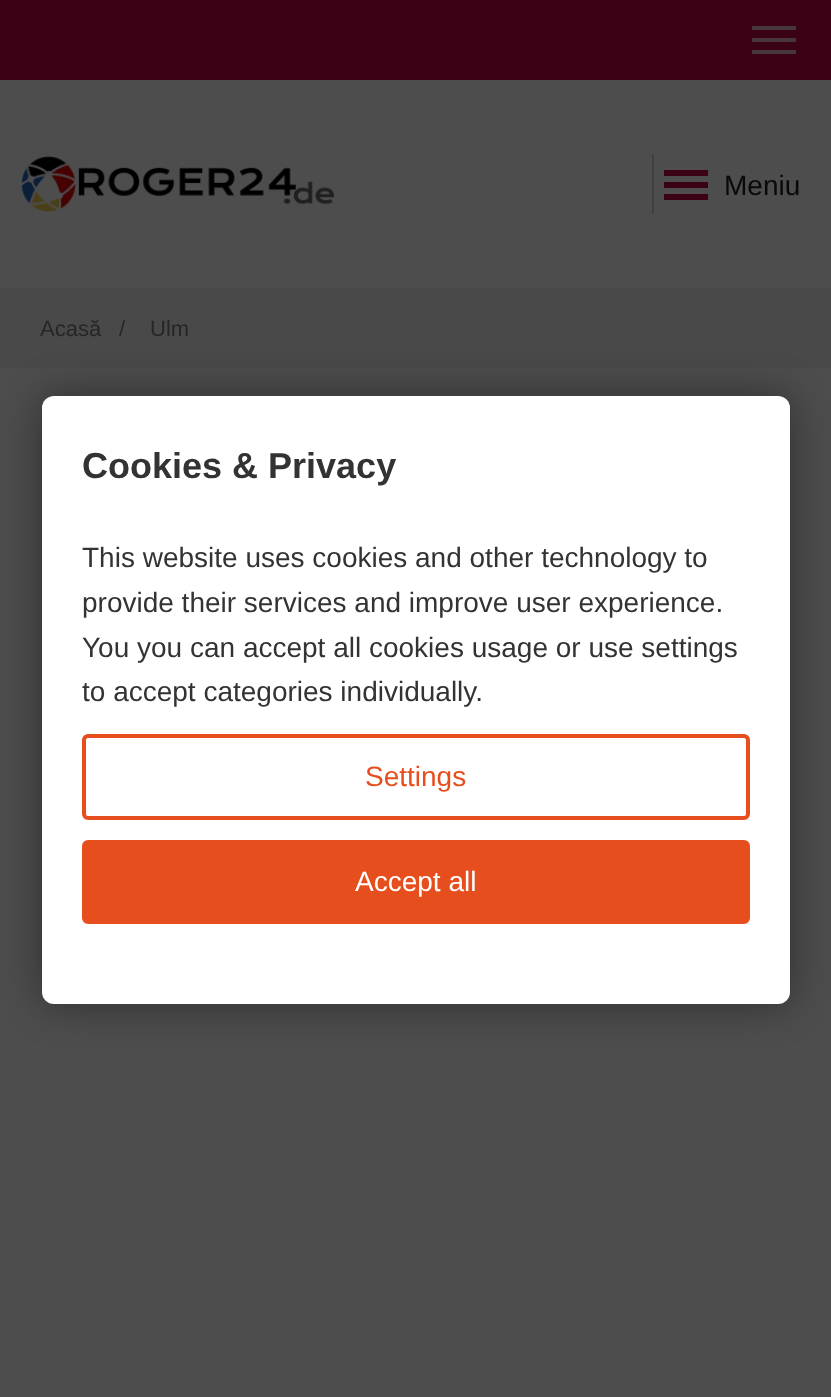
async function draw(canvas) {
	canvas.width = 831;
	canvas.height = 1397;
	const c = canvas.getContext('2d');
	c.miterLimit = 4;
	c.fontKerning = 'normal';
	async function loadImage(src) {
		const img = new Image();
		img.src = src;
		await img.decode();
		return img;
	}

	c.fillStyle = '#4d4d4d';
	c.fillRect(0, 0, 831, 1397);
	for (const [x, y, w, h, color] of [
		[0, 0, 831, 80, '#3a0214'],
		[752, 26, 44, 4, '#47363b'],
		[752, 38, 44, 4, '#47363b'],
		[752, 50, 44, 4, '#47363b'],
	]) {
		c.fillStyle = color;
		c.fillRect(x, y, w, h);
	}
	c.drawImage(await loadImage('img1.png'), 21, 156, 314, 56);
	for (const [x, y, w, h, color] of [
		[652, 154, 2, 60, '#404040'],
		[664, 170, 44, 6, '#3a0214'],
		[664, 182, 44, 6, '#3a0214'],
	]) {
		c.fillStyle = color;
		c.fillRect(x, y, w, h);
	}
	c.font = '28px Liberation Sans';
	c.fillStyle = '#090909';
	c.fillText('Meniu', 724, 195);
	c.fillStyle = '#3a0214';
	c.fillRect(664, 194, 44, 6);
	c.fillStyle = '#494949';
	c.fillRect(0, 288, 831, 80);
	c.font = '22px Liberation Sans';
	c.fillStyle = '#262626';
	for (const [text, x, y] of [
		['Acasă', 40, 336],
		['/', 119, 336],
		['Ulm', 150, 336],
	]) {
		c.fillText(text, x, y);
	}
	c.fillStyle = '#00000066';
	c.filter = 'blur(20px)';
	c.beginPath();
	c.roundRect(42, 396, 748, 608, 12);
	c.fill();
	c.filter = 'none';
	c.fillStyle = '#fff';
	c.beginPath();
	c.roundRect(42, 396, 748, 608, 12);
	c.fill();
	c.font = 'bold 36px Liberation Sans';
	c.fillStyle = '#333';
	c.fillText('Cookies & Privacy', 82, 478);
	c.font = '28px Liberation Sans';
	for (const [text, x, y] of [
		['This website uses cookies and other technology to', 82, 567],
		['provide their services and improve user experience.', 82, 612],
		['You you can accept all cookies usage or use settings', 82, 657],
		['to accept categories individually.', 82, 701],
	]) {
		c.fillText(text, x, y);
	}
	c.beginPath();
	c.roundRect(84, 736, 664, 82, 4);
	c.strokeStyle = '#e74e1e';
	c.lineWidth = 4;
	c.stroke();
	c.fillStyle = '#e74e1e';
	c.fillText('Settings', 365, 786);
	c.beginPath();
	c.roundRect(84, 842, 664, 80, 4);
	c.fill();
	c.stroke();
	c.fillStyle = '#fff';
	c.fillText('Accept all', 355, 891);
}

draw(document.querySelector('canvas'));
